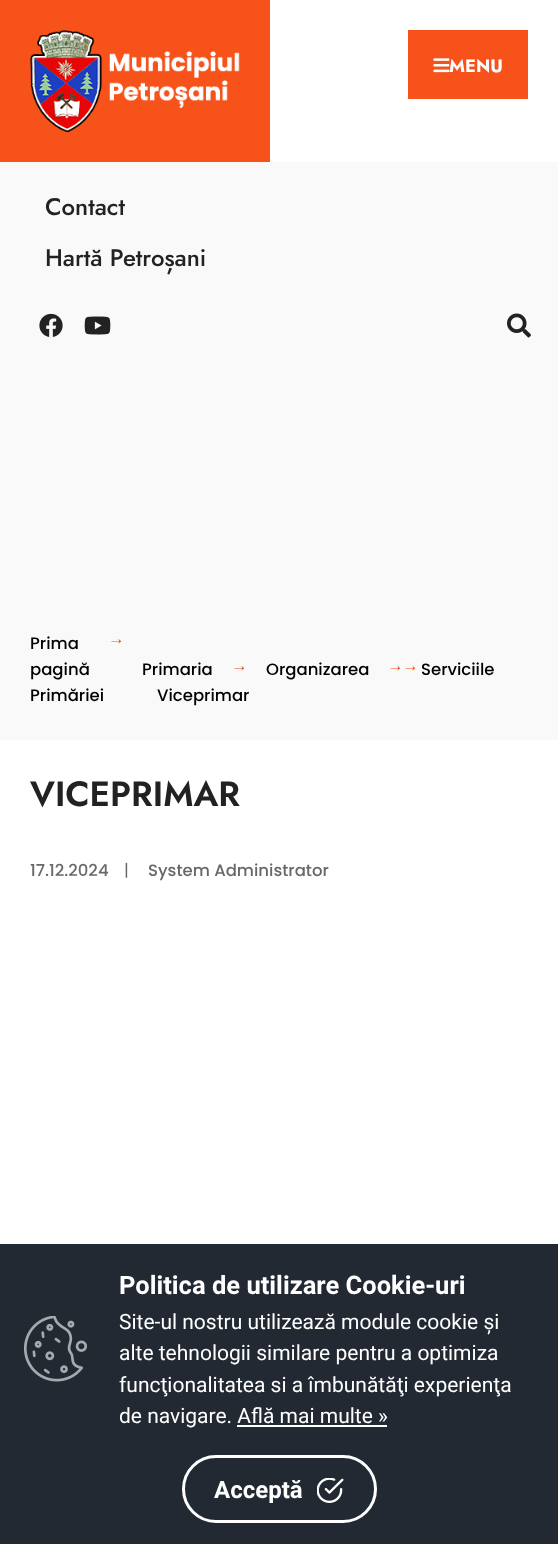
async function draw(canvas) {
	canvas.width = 558;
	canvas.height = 1544;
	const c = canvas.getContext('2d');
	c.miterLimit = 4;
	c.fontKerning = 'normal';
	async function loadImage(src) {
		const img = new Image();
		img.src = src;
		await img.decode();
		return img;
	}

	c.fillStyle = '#fff';
	c.fillRect(0, 0, 558, 1544);
	c.fillStyle = '#f65219';
	c.fillRect(0, 0, 270, 162);
	c.drawImage(await loadImage('img1.png'), 30, 30, 210, 102);
	c.fillRect(408, 30, 120, 69);
	c.drawImage(await loadImage('img2.png'), 433, 58, 17, 15);
	c.font = 'bold 18px Jost';
	c.fillStyle = '#fff';
	c.fillText('MENU', 449, 72);
	c.fillStyle = '#f9f9f9';
	c.fillRect(0, 162, 558, 578);
	c.font = '500 24px Jost';
	c.fillStyle = '#222';
	c.fillText('Contact', 45, 215);
	c.fillText('Hartă Petroșani', 45, 266);
	c.drawImage(await loadImage('img3.png'), 39, 313, 24, 24);
	c.drawImage(await loadImage('img4.png'), 84, 316, 27, 19);
	c.drawImage(await loadImage('img5.png'), 507, 313, 24, 25);
	c.font = '500 16.5px Poppins';
	c.fillStyle = '#000';
	c.fillText('Prima', 30, 649);
	c.font = '16.5px Liberation Serif';
	c.fillStyle = '#f65219';
	c.fillText('→', 108, 644);
	c.font = '500 16.5px Poppins';
	c.fillStyle = '#000';
	c.fillText('pagină', 30, 675);
	c.font = '16.5px Liberation Serif';
	c.fillStyle = '#f65219';
	c.fillText('→', 402, 671);
	c.font = '500 16.5px Poppins';
	c.fillStyle = '#000';
	for (const [text, x, y] of [
		['Serviciile', 421, 675],
		['Primăriei', 30, 701],
		['Primaria', 142, 675],
	]) {
		c.fillText(text, x, y);
	}
	c.font = '16.5px Liberation Serif';
	c.fillStyle = '#f65219';
	c.fillText('→', 231, 671);
	c.font = '500 16.5px Poppins';
	c.fillStyle = '#000';
	c.fillText('Organizarea', 266, 675);
	c.font = '16.5px Liberation Serif';
	c.fillStyle = '#f65219';
	c.fillText('→', 387, 671);
	c.font = '500 16.5px Poppins';
	c.fillStyle = '#000';
	c.fillText('Viceprimar', 157, 701);
	c.font = '600 35px Jost';
	c.fillStyle = '#222';
	c.fillText('VICEPRIMAR', 30, 806);
	c.font = '500 16.5px Poppins';
	c.fillStyle = '#686868';
	c.fillText('17.12.2024', 30, 876);
	c.font = '16.5px Poppins';
	c.fillText('|', 124, 876);
	c.font = '500 16.5px Poppins';
	c.fillText('System Administrator', 148, 876);
	c.fillStyle = '#222933';
	c.fillRect(0, 1244, 558, 300);
	c.drawImage(await loadImage('img6.png'), 23, 1316, 64, 66);
	c.font = 'bold 25.5px Roboto';
	c.fillStyle = '#fff';
	c.fillText('Politica de utilizare Cookie-uri', 119, 1294);
	c.font = '21px Roboto';
	for (const [text, x, y] of [
		['Site-ul nostru utilizează module cookie și', 119, 1329],
		['alte tehnologii similare pentru a optimiza', 119, 1360],
		['funcţionalitatea si a îmbunătăţi experienţa', 119, 1392],
		['de navigare. Află mai multe »', 119, 1423],
	]) {
		c.fillText(text, x, y);
	}
	c.fillRect(237, 1425, 150, 2);
	c.beginPath();
	c.roundRect(183.5, 1456.5, 192, 65, 32.5);
	c.strokeStyle = '#fff';
	c.lineWidth = 3;
	c.stroke();
	c.font = 'bold 24px Roboto';
	c.fillText('Acceptă', 214, 1498);
	c.drawImage(await loadImage('img7.png'), 317, 1478, 27, 25);
}

draw(document.querySelector('canvas'));
